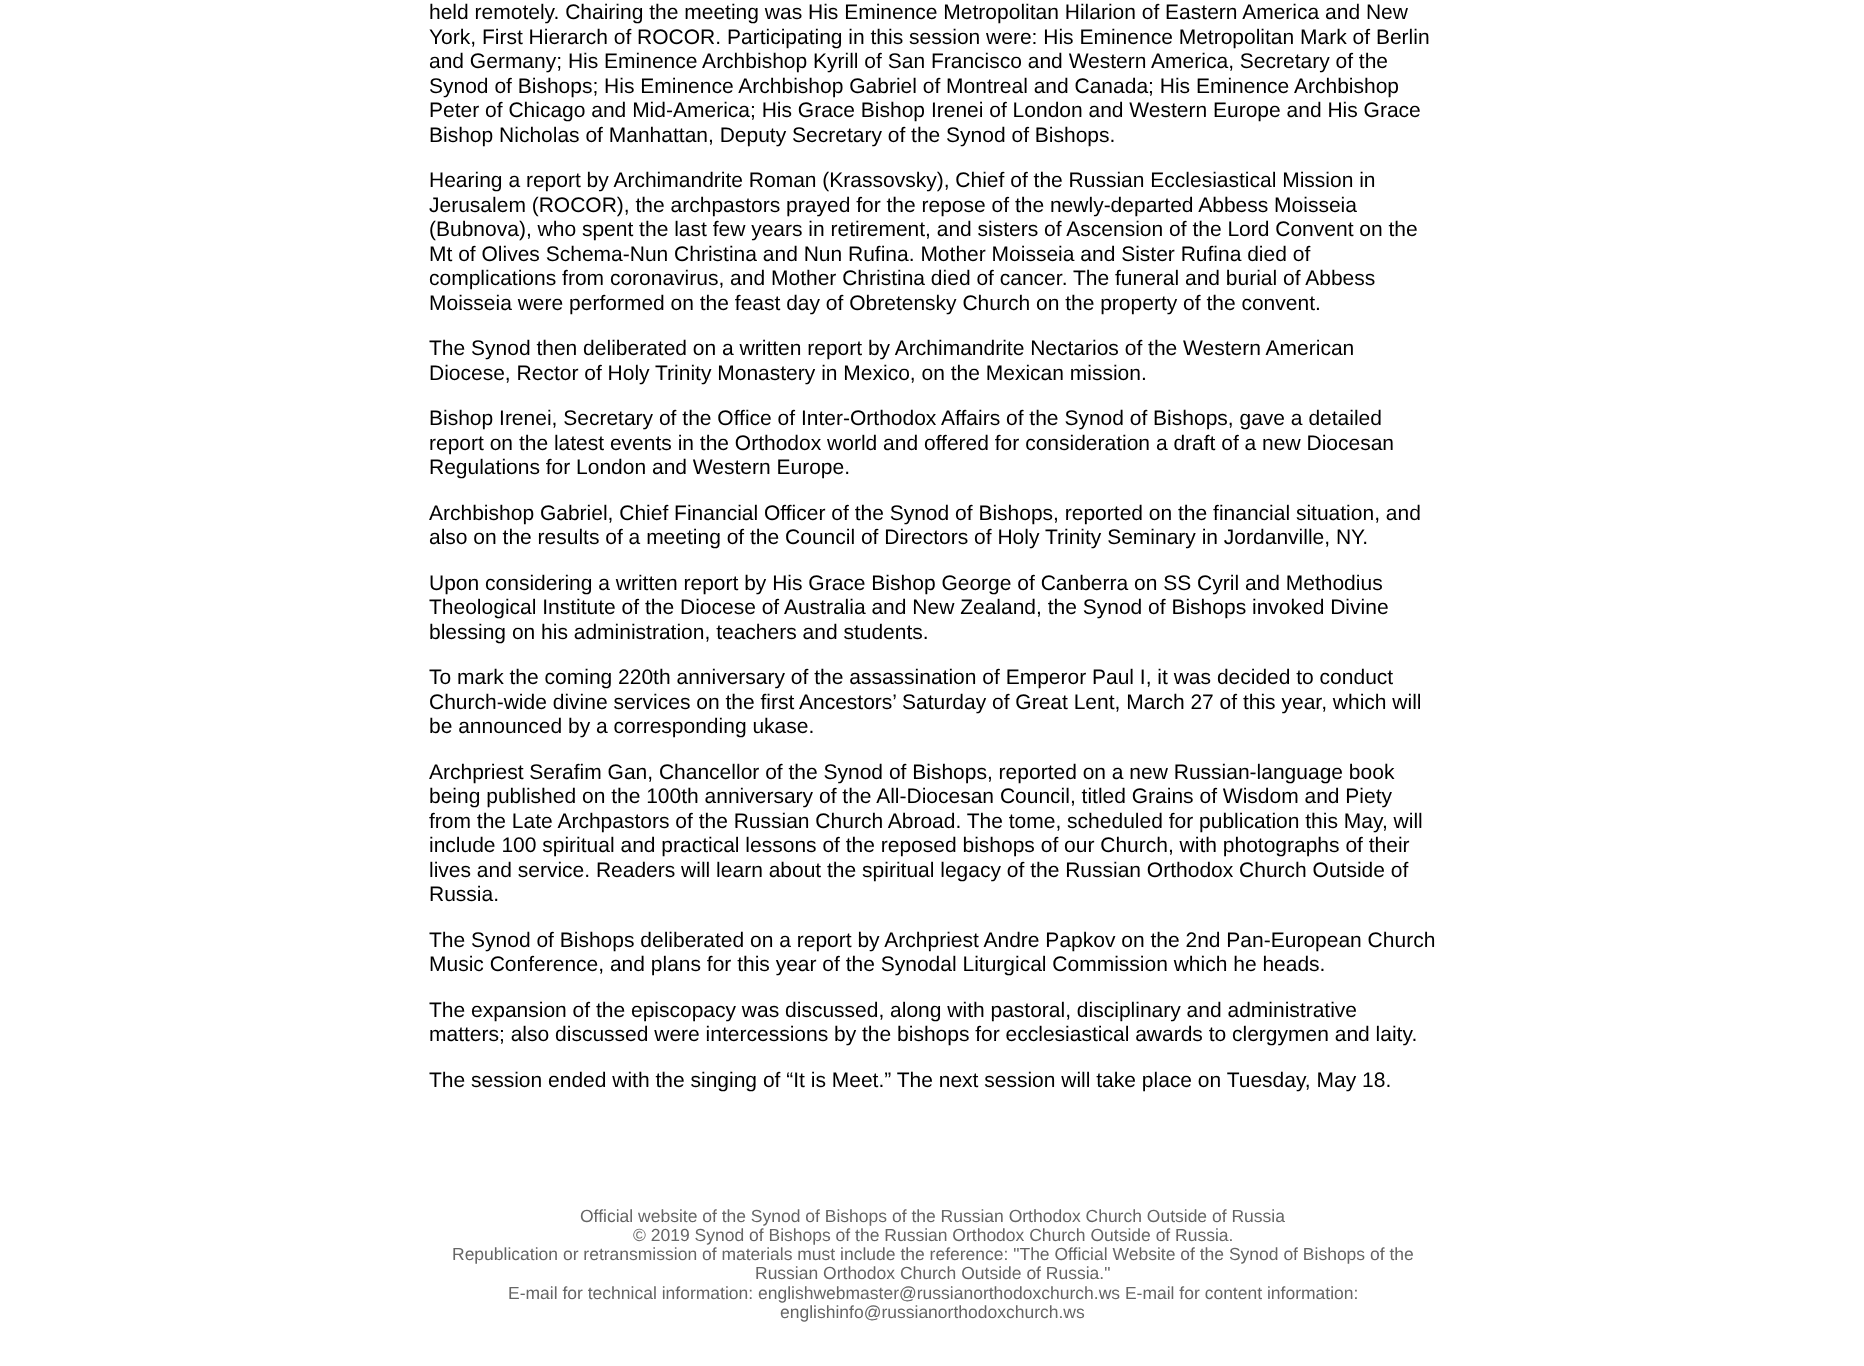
async function draw(canvas) {
	canvas.width = 1864;
	canvas.height = 1366;
	const c = canvas.getContext('2d');
	c.miterLimit = 4;
	c.fontKerning = 'normal';

	c.fillStyle = '#fff';
	c.fillRect(0, 0, 1864, 1366);
	c.font = '21px Liberation Sans';
	c.fillStyle = '#000';
	for (const [text, x, y] of [
		['held remotely. Chairing the meeting was His Eminence Metropolitan Hilarion of Eastern America and New', 429, 19],
		['York, First Hierarch of ROCOR. Participating in this session were: His Eminence Metropolitan Mark of Berlin', 429, 44],
		['and Germany; His Eminence Archbishop Kyrill of San Francisco and Western America, Secretary of the', 429, 68],
		['Synod of Bishops; His Eminence Archbishop Gabriel of Montreal and Canada; His Eminence Archbishop', 429, 93],
		['Peter of Chicago and Mid-America; His Grace Bishop Irenei of London and Western Europe and His Grace', 429, 117],
		['Bishop Nicholas of Manhattan, Deputy Secretary of the Synod of Bishops.', 429, 142],
		['Hearing a report by Archimandrite Roman (Krassovsky), Chief of the Russian Ecclesiastical Mission in', 429, 187],
		['Jerusalem (ROCOR), the archpastors prayed for the repose of the newly-departed Abbess Moisseia', 429, 212],
		['(Bubnova), who spent the last few years in retirement, and sisters of Ascension of the Lord Convent on the', 429, 236],
		['Mt of Olives Schema-Nun Christina and Nun Rufina. Mother Moisseia and Sister Rufina died of', 429, 261],
		['complications from coronavirus, and Mother Christina died of cancer. The funeral and burial of Abbess', 429, 285],
		['Moisseia were performed on the feast day of Obretensky Church on the property of the convent.', 429, 310],
		['The Synod then deliberated on a written report by Archimandrite Nectarios of the Western American', 429, 355],
		['Diocese, Rector of Holy Trinity Monastery in Mexico, on the Mexican mission.', 429, 380],
		['Bishop Irenei, Secretary of the Office of Inter-Orthodox Affairs of the Synod of Bishops, gave a detailed', 429, 425],
		['report on the latest events in the Orthodox world and offered for consideration a draft of a new Diocesan', 429, 450],
		['Regulations for London and Western Europe.', 429, 474],
		['Archbishop Gabriel, Chief Financial Officer of the Synod of Bishops, reported on the financial situation, and', 429, 520],
		['also on the results of a meeting of the Council of Directors of Holy Trinity Seminary in Jordanville, NY.', 429, 544],
		['Upon considering a written report by His Grace Bishop George of Canberra on SS Cyril and Methodius', 429, 590],
		['Theological Institute of the Diocese of Australia and New Zealand, the Synod of Bishops invoked Divine', 429, 614],
		['blessing on his administration, teachers and students.', 429, 639],
		['To mark the coming 220th anniversary of the assassination of Emperor Paul I, it was decided to conduct', 429, 684],
		['Church-wide divine services on the first Ancestors’ Saturday of Great Lent, March 27 of this year, which will', 429, 709],
		['be announced by a corresponding ukase.', 429, 733],
		['Archpriest Serafim Gan, Chancellor of the Synod of Bishops, reported on a new Russian-language book', 429, 779],
		['being published on the 100th anniversary of the All-Diocesan Council, titled Grains of Wisdom and Piety', 429, 803],
		['from the Late Archpastors of the Russian Church Abroad. The tome, scheduled for publication this May, will', 429, 828],
		['include 100 spiritual and practical lessons of the reposed bishops of our Church, with photographs of their', 429, 852],
		['lives and service. Readers will learn about the spiritual legacy of the Russian Orthodox Church Outside of', 429, 877],
		['Russia.', 429, 901],
		['The Synod of Bishops deliberated on a report by Archpriest Andre Papkov on the 2nd Pan-European Church', 429, 947],
		['Music Conference, and plans for this year of the Synodal Liturgical Commission which he heads.', 429, 971],
		['The expansion of the episcopacy was discussed, along with pastoral, disciplinary and administrative', 429, 1017],
		['matters; also discussed were intercessions by the bishops for ecclesiastical awards to clergymen and laity.', 429, 1041],
		['The session ended with the singing of “It is Meet.” The next session will take place on Tuesday, May 18.', 429, 1087],
	]) {
		c.fillText(text, x, y);
	}
	c.font = '17.5px Liberation Sans';
	c.fillStyle = '#666';
	for (const [text, x, y] of [
		['Official website of the Synod of Bishops of the Russian Orthodox Church Outside of Russia', 580, 1222],
		['© 2019 Synod of Bishops of the Russian Orthodox Church Outside of Russia.', 633, 1241],
		['Republication or retransmission of materials must include the reference: "The Official Website of the Synod of Bishops of the', 452, 1260],
		['Russian Orthodox Church Outside of Russia."', 755, 1279],
		['E-mail for technical information: englishwebmaster@russianorthodoxchurch.ws E-mail for content information:', 508, 1299],
		['englishinfo@russianorthodoxchurch.ws', 780, 1318],
	]) {
		c.fillText(text, x, y);
	}
}

draw(document.querySelector('canvas'));
